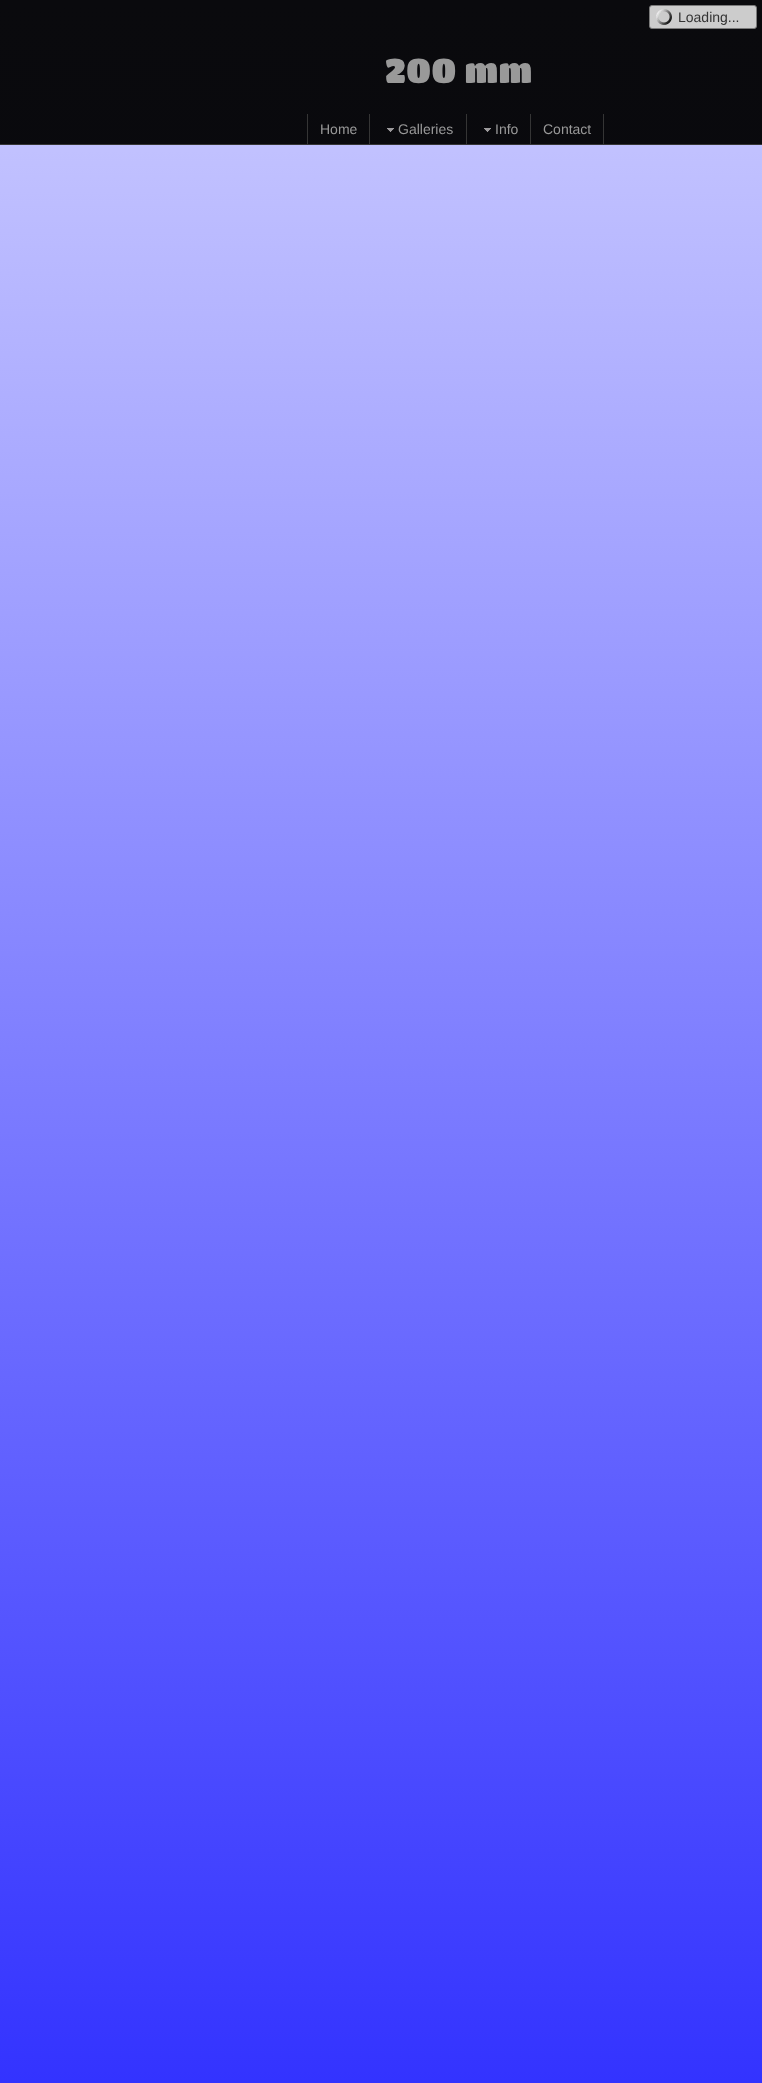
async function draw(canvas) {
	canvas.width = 762;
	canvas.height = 2083;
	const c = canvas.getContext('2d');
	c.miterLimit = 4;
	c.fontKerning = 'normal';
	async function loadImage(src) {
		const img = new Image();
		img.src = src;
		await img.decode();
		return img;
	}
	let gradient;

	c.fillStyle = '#fff';
	c.fillRect(0, 0, 762, 2083);
	gradient = c.createLinearGradient(381, 0, 381, 2083);
	gradient.addColorStop(0, '#ccf');
	gradient.addColorStop(1, '#33f');
	c.fillStyle = gradient;
	c.fillRect(0, 145, 762, 1938);
	gradient = c.createLinearGradient(381, 0, 381, 2083);
	gradient.addColorStop(0, '#0a0a0d');
	gradient.addColorStop(1, '#03030d');
	c.fillStyle = gradient;
	c.fillRect(0, 0, 762, 144);
	c.fillStyle = '#ccc';
	c.beginPath();
	c.roundRect(649.5, 5.5, 107, 23, 2.5);
	c.fill();
	c.strokeStyle = '#7a7a7a';
	c.stroke();
	c.drawImage(await loadImage('img1.png'), 656, 9, 16, 16);
	c.font = '14px Liberation Sans';
	c.fillStyle = '#333';
	c.fillText('Loading...', 678, 22);
	c.fillStyle = '#353535';
	c.fillRect(0, 144, 762, 1);
	c.letterSpacing = '0.5px';
	c.font = '34px Titan One';
	c.fillStyle = '#999';
	c.fillText('200 mm', 385, 83);
	c.fillStyle = '#353535';
	c.fillRect(603, 114, 1, 30);
	c.fillRect(307, 114, 1, 30);
	c.letterSpacing = '0px';
	c.font = '14px Liberation Sans';
	c.fillStyle = '#999';
	c.fillText('Home', 320, 134);
	c.fillStyle = '#353535';
	c.fillRect(369, 114, 1, 30);
	c.drawImage(await loadImage('img2.png'), 387, 128, 7, 4);
	c.fillStyle = '#999';
	c.fillText('Galleries', 398, 134);
	c.fillStyle = '#353535';
	c.fillRect(466, 114, 1, 30);
	c.drawImage(await loadImage('img2.png'), 484, 128, 7, 4);
	c.fillStyle = '#999';
	c.fillText('Info', 495, 134);
	c.fillStyle = '#353535';
	c.fillRect(530, 114, 1, 30);
	c.fillStyle = '#999';
	c.fillText('Contact', 543, 134);
}

draw(document.querySelector('canvas'));
